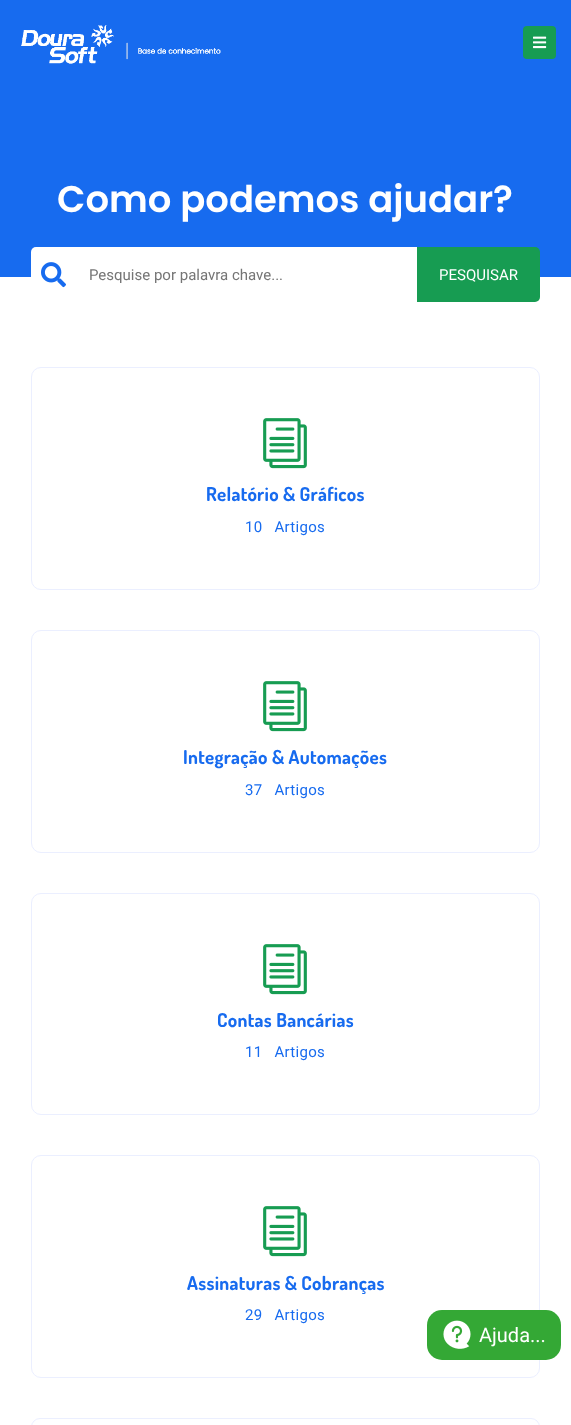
async function draw(canvas) {
	canvas.width = 571;
	canvas.height = 1425;
	const c = canvas.getContext('2d');
	c.miterLimit = 4;
	c.fontKerning = 'normal';
	async function loadImage(src) {
		const img = new Image();
		img.src = src;
		await img.decode();
		return img;
	}

	c.fillStyle = '#fff';
	c.fillRect(0, 0, 571, 1425);
	c.fillStyle = '#176bef';
	c.fillRect(0, 0, 571, 277);
	c.drawImage(await loadImage('img1.png'), 21, 25, 200, 39);
	c.fillStyle = '#179c52';
	c.beginPath();
	c.roundRect(523, 26, 33, 33, 4);
	c.fill();
	c.drawImage(await loadImage('img2.png'), 533, 36, 14, 13);
	c.font = '600 37px Poppins';
	c.fillStyle = '#fff';
	c.fillText('Como podemos ajudar?', 57, 212);
	c.beginPath();
	c.roundRect(31, 247, 46, 55, [5, 0, 0, 5]);
	c.fill();
	c.drawImage(await loadImage('img3.png'), 41, 262, 25, 26);
	c.fillRect(77, 247, 340, 30);
	c.font = '15px Roboto';
	c.fillStyle = '#757575';
	c.fillText('Pesquise por palavra chave...', 89, 280);
	c.fillStyle = '#179c52';
	c.beginPath();
	c.roundRect(417, 247, 123, 55, [0, 5, 5, 0]);
	c.fill();
	c.fillStyle = '#fff';
	c.fillText('PESQUISAR', 439, 280);
	c.beginPath();
	c.roundRect(31.5, 367.5, 508, 222, 9.5);
	c.strokeStyle = '#ebefff';
	c.stroke();
	c.drawImage(await loadImage('img4.png'), 263, 418, 44, 51);
	c.letterSpacing = '0.3px';
	c.font = 'bold 19px Dosis';
	c.fillStyle = '#176bef';
	c.fillText('Relatório & Gráficos', 206, 501);
	c.font = '15px Roboto';
	c.fillText('10   Artigos', 245, 532);
	c.beginPath();
	c.roundRect(31.5, 630.5, 508, 222, 9.5);
	c.stroke();
	c.drawImage(await loadImage('img4.png'), 263, 681, 44, 51);
	c.font = 'bold 19px Dosis';
	c.fillText('Integração & Automações', 183, 764);
	c.font = '15px Roboto';
	c.fillText('37   Artigos', 245, 795);
	c.beginPath();
	c.roundRect(31.5, 893.5, 508, 221, 9.5);
	c.stroke();
	c.drawImage(await loadImage('img4.png'), 263, 944, 44, 51);
	c.font = 'bold 19px Dosis';
	c.fillText('Contas Bancárias', 217, 1027);
	c.font = '15px Roboto';
	c.fillText('11   Artigos', 245, 1057);
	c.beginPath();
	c.roundRect(31.5, 1155.5, 508, 222, 9.5);
	c.stroke();
	c.drawImage(await loadImage('img4.png'), 263, 1206, 44, 51);
	c.font = 'bold 19px Dosis';
	c.fillText('Assinaturas & Cobranças', 187, 1290);
	c.font = '15px Roboto';
	c.fillText('29   Artigos', 245, 1320);
	c.beginPath();
	c.roundRect(31.5, 1418.5, 508, 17, 9.5);
	c.stroke();
	c.fillStyle = '#34a835';
	c.beginPath();
	c.roundRect(427, 1310, 134, 50, 15);
	c.fill();
	c.drawImage(await loadImage('img5.png'), 443, 1320, 28, 29);
	c.letterSpacing = '0px';
	c.font = '20px Roboto';
	c.fillStyle = '#fff';
	c.fillText('Ajuda...', 479, 1342);
}

draw(document.querySelector('canvas'));
